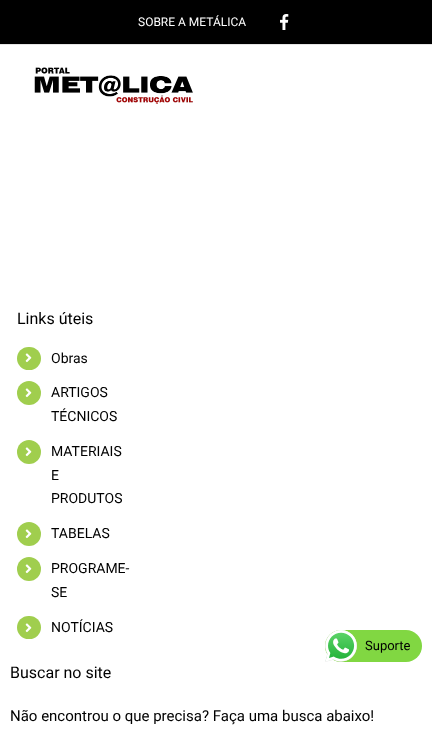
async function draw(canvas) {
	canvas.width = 432;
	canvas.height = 742;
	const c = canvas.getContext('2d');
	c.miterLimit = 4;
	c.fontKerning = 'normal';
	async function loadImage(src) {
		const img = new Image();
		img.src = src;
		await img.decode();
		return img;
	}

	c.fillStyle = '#fff';
	c.fillRect(0, 0, 432, 742);
	c.fillStyle = '#000';
	c.fillRect(0, 0, 432, 44);
	c.fillStyle = '#e5e5e5';
	c.fillRect(0, 44, 432, 1);
	c.font = '12px Roboto';
	c.fillStyle = '#fff';
	c.fillText('SOBRE A METÁLICA', 138, 26);
	c.drawImage(await loadImage('img1.png'), 280, 14, 9, 16);
	c.drawImage(await loadImage('img2.png'), 34, 67, 159, 37);
	c.font = '16px Roboto';
	c.fillStyle = '#000';
	c.fillText('Links úteis', 17, 324);
	c.fillStyle = '#a0ce4e';
	c.beginPath();
	c.roundRect(17, 347, 24, 23, 11.5);
	c.fill();
	c.drawImage(await loadImage('img3.png'), 25, 353, 7, 10);
	c.font = '14px Roboto';
	c.fillStyle = '#000';
	c.fillText('Obras', 51, 363);
	c.fillStyle = '#a0ce4e';
	c.beginPath();
	c.arc(29, 393, 12, 0, 2 * Math.PI);
	c.fill();
	c.drawImage(await loadImage('img3.png'), 25, 388, 7, 10);
	c.fillStyle = '#000';
	c.fillText('ARTIGOS', 51, 397);
	c.fillText('TÉCNICOS', 51, 421);
	c.fillStyle = '#a0ce4e';
	c.beginPath();
	c.arc(29, 452, 12, 0, 2 * Math.PI);
	c.fill();
	c.drawImage(await loadImage('img3.png'), 25, 447, 7, 10);
	c.fillStyle = '#000';
	for (const [text, x, y] of [
		['MATERIAIS', 51, 456],
		['E', 51, 480],
		['PRODUTOS', 51, 503],
	]) {
		c.fillText(text, x, y);
	}
	c.fillStyle = '#a0ce4e';
	c.beginPath();
	c.arc(29, 534, 12, 0, 2 * Math.PI);
	c.fill();
	c.drawImage(await loadImage('img3.png'), 25, 529, 7, 10);
	c.fillStyle = '#000';
	c.fillText('TABELAS', 51, 538);
	c.fillStyle = '#a0ce4e';
	c.beginPath();
	c.arc(29, 569, 12, 0, 2 * Math.PI);
	c.fill();
	c.drawImage(await loadImage('img3.png'), 25, 564, 7, 10);
	c.fillStyle = '#000';
	c.fillText('PROGRAME-', 51, 573);
	c.fillText('SE', 51, 597);
	c.fillStyle = '#a0ce4e';
	c.beginPath();
	c.roundRect(17, 616, 24, 23, 11.5);
	c.fill();
	c.drawImage(await loadImage('img3.png'), 25, 623, 7, 10);
	c.fillStyle = '#000';
	c.fillText('NOTÍCIAS', 51, 632);
	c.font = '16px Roboto';
	c.fillText('Buscar no site', 10, 678);
	c.font = '15px Roboto';
	c.fillText('Não encontrou o que precisa? Faça uma busca abaixo!', 10, 721);
	c.fillStyle = '#81d742';
	c.beginPath();
	c.roundRect(325, 630, 97, 32, 16);
	c.fill();
	c.drawImage(await loadImage('img4.png'), 325, 630, 32, 32);
	c.font = '13px Roboto';
	c.fillStyle = '#000';
	c.fillText('Suporte', 365, 650);
}

draw(document.querySelector('canvas'));
